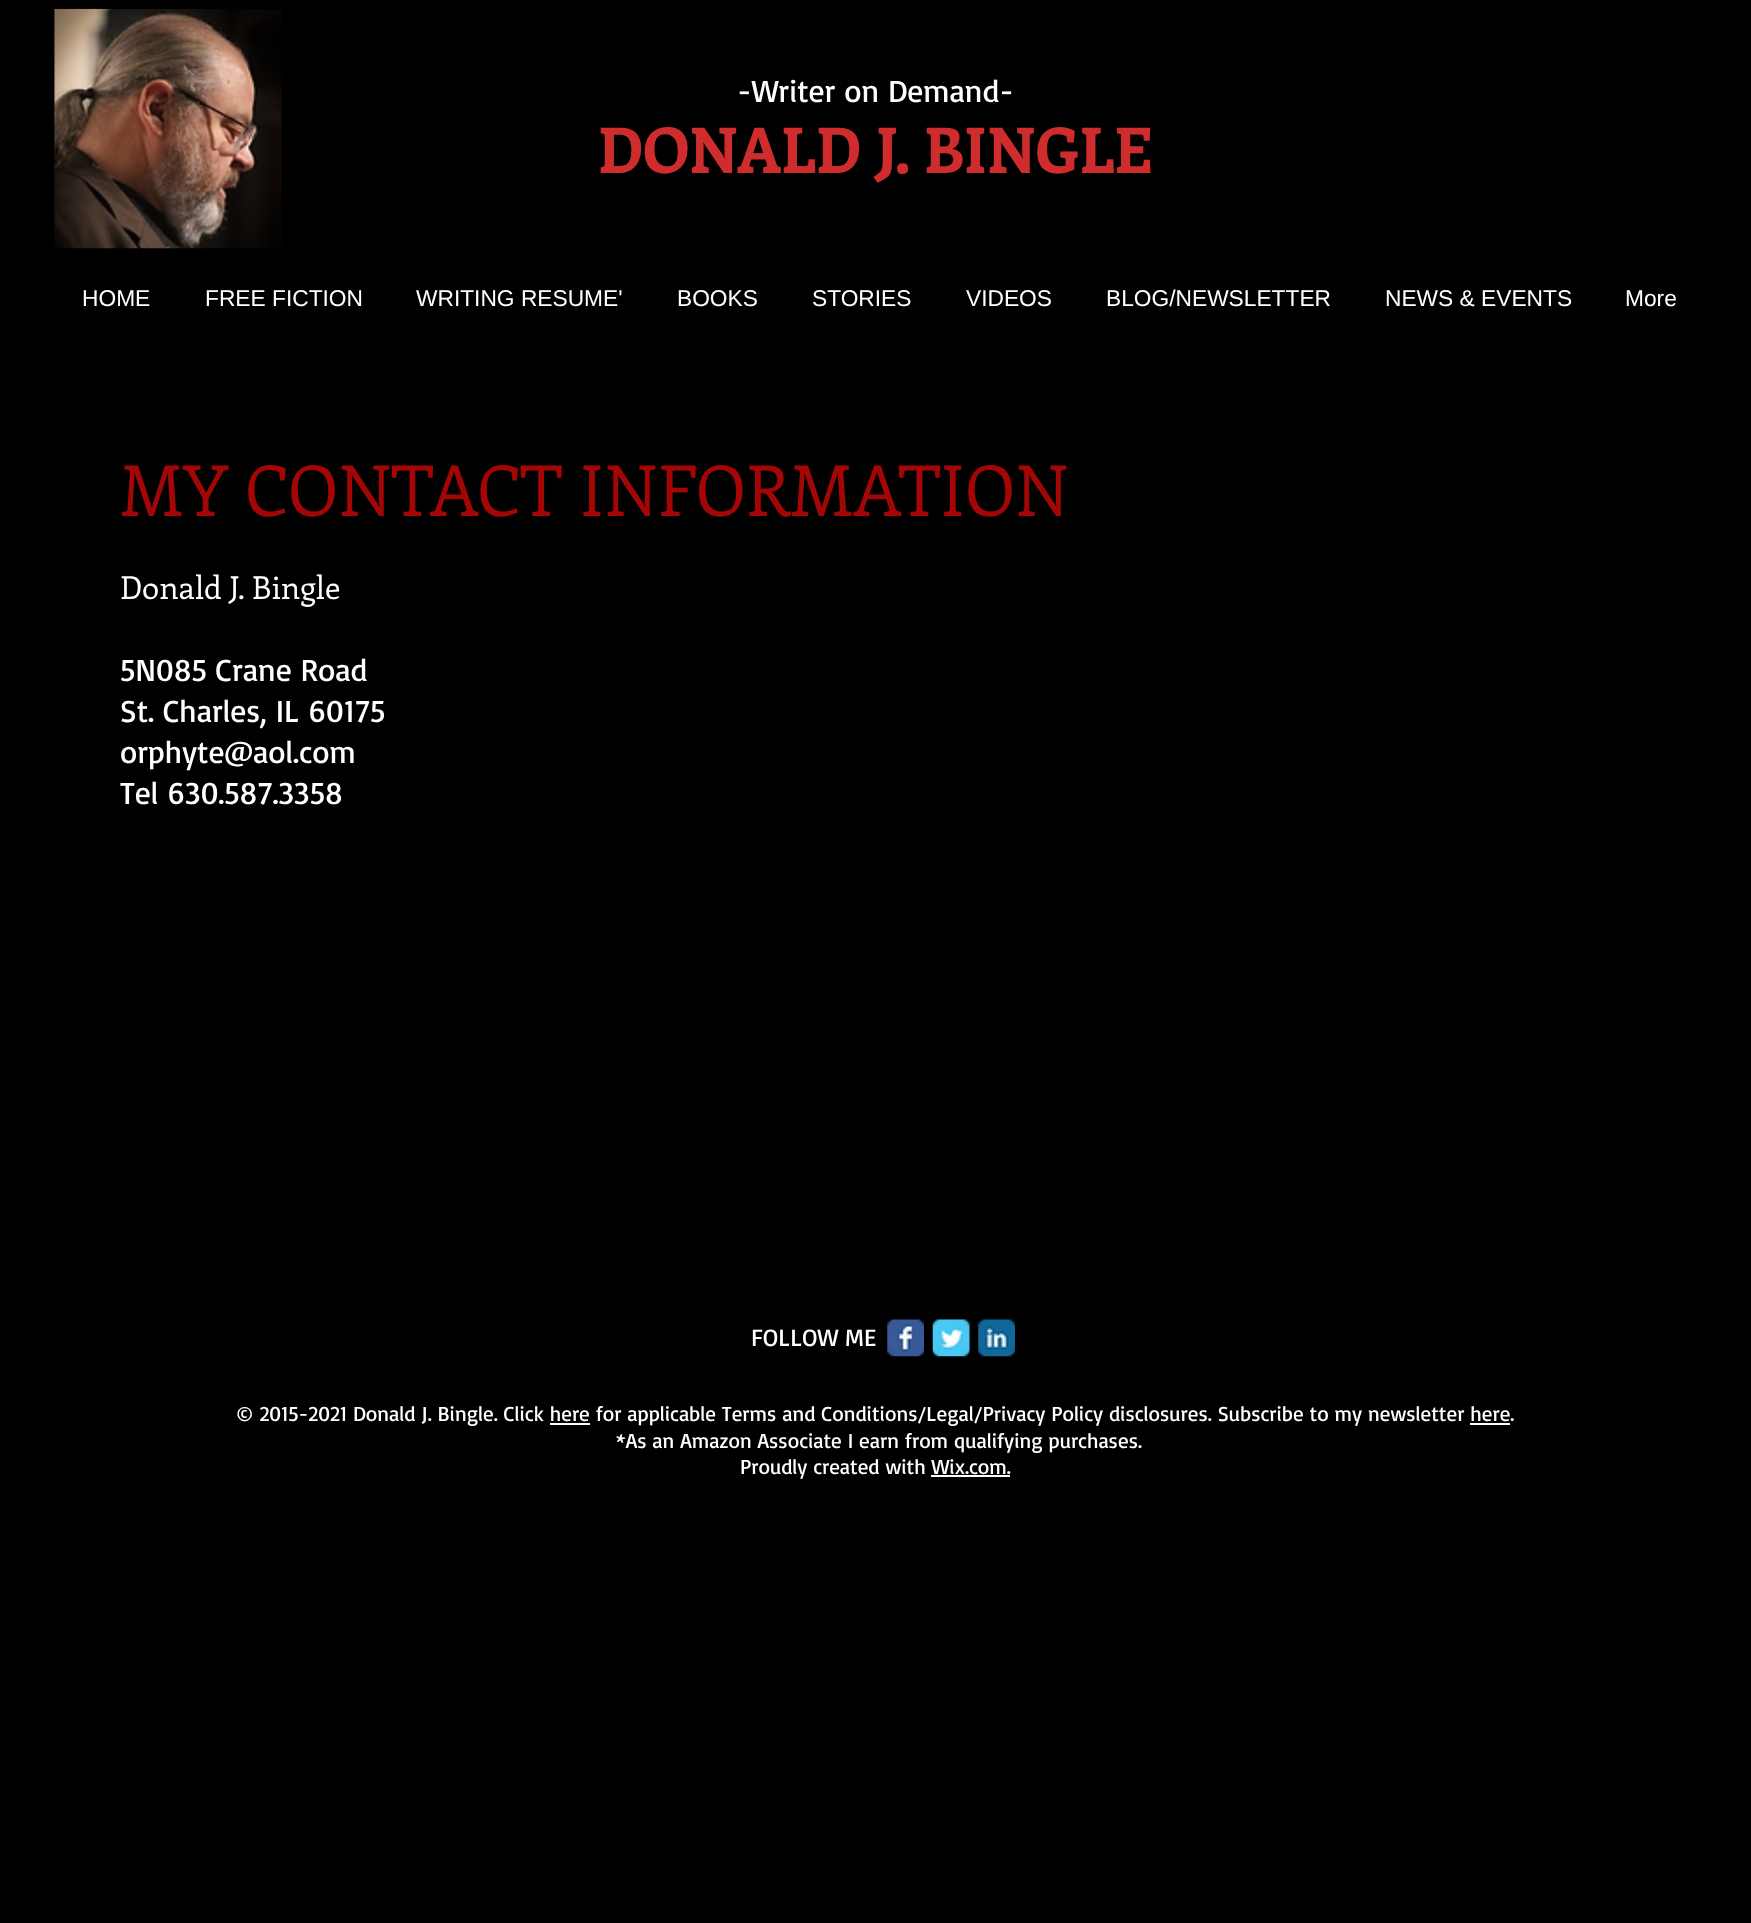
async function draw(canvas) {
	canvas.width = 1751;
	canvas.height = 1923;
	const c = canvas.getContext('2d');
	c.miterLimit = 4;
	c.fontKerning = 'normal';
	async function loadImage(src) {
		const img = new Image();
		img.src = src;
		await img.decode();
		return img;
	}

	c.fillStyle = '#000';
	c.fillRect(0, 0, 1751, 1923);
	c.drawImage(await loadImage('img1.png'), 54, 8, 228, 241);
	c.font = '31.5px Basic';
	c.fillStyle = '#fff';
	c.fillText('-Writer on Demand-', 737, 102);
	c.font = 'bold 63px Enriqueta';
	c.fillStyle = '#cf2d2d';
	c.fillText('DONALD J. BINGLE', 598, 173);
	c.font = '22.75px Liberation Sans';
	c.fillStyle = '#fff';
	for (const [text, x, y] of [
		['HOME', 82, 306],
		['FREE FICTION', 205, 306],
		['WRITING RESUME\'', 416, 306],
		['BOOKS', 677, 306],
		['STORIES', 812, 306],
		['VIDEOS', 966, 306],
		['BLOG/NEWSLETTER', 1106, 306],
		['NEWS & EVENTS', 1385, 306],
		['More', 1625, 306],
	]) {
		c.fillText(text, x, y);
	}
	c.font = '70px Enriqueta';
	c.fillStyle = '#a40606';
	c.fillText('MY CONTACT INFORMATION', 120, 516);
	c.font = '31.5px Enriqueta';
	c.fillStyle = '#fff';
	c.fillText('Donald J. Bingle', 120, 599);
	c.font = '31.5px Basic';
	for (const [text, x, y] of [
		['5N085 Crane Road', 120, 681],
		['St. Charles, IL 60175', 120, 722],
		['orphyte@aol.com', 120, 763],
		['Tel 630.587.3358', 120, 804],
	]) {
		c.fillText(text, x, y);
	}
	c.font = '24.5px Basic';
	c.fillText('FOLLOW ME', 751, 1346);
	c.drawImage(await loadImage('img2.png'), 887, 1319, 37, 38);
	c.drawImage(await loadImage('img3.png'), 932, 1319, 38, 38);
	c.drawImage(await loadImage('img4.png'), 978, 1319, 37, 38);
	c.font = '21px Basic';
	c.fillText('© 2015-2021 Donald J. Bingle. Click here for applicable Terms and Conditions/Legal/Privacy Policy disclosures. Subscribe to my newsletter here.', 236, 1421);
	c.fillRect(550, 1423, 40, 2);
	c.fillRect(1470, 1423, 40, 2);
	c.fillText('*As an Amazon Associate I earn from qualifying purchases.', 616, 1448);
	c.fillText('Proudly created with Wix.com.', 740, 1474);
	c.fillRect(931, 1475, 79, 2);
}

draw(document.querySelector('canvas'));
